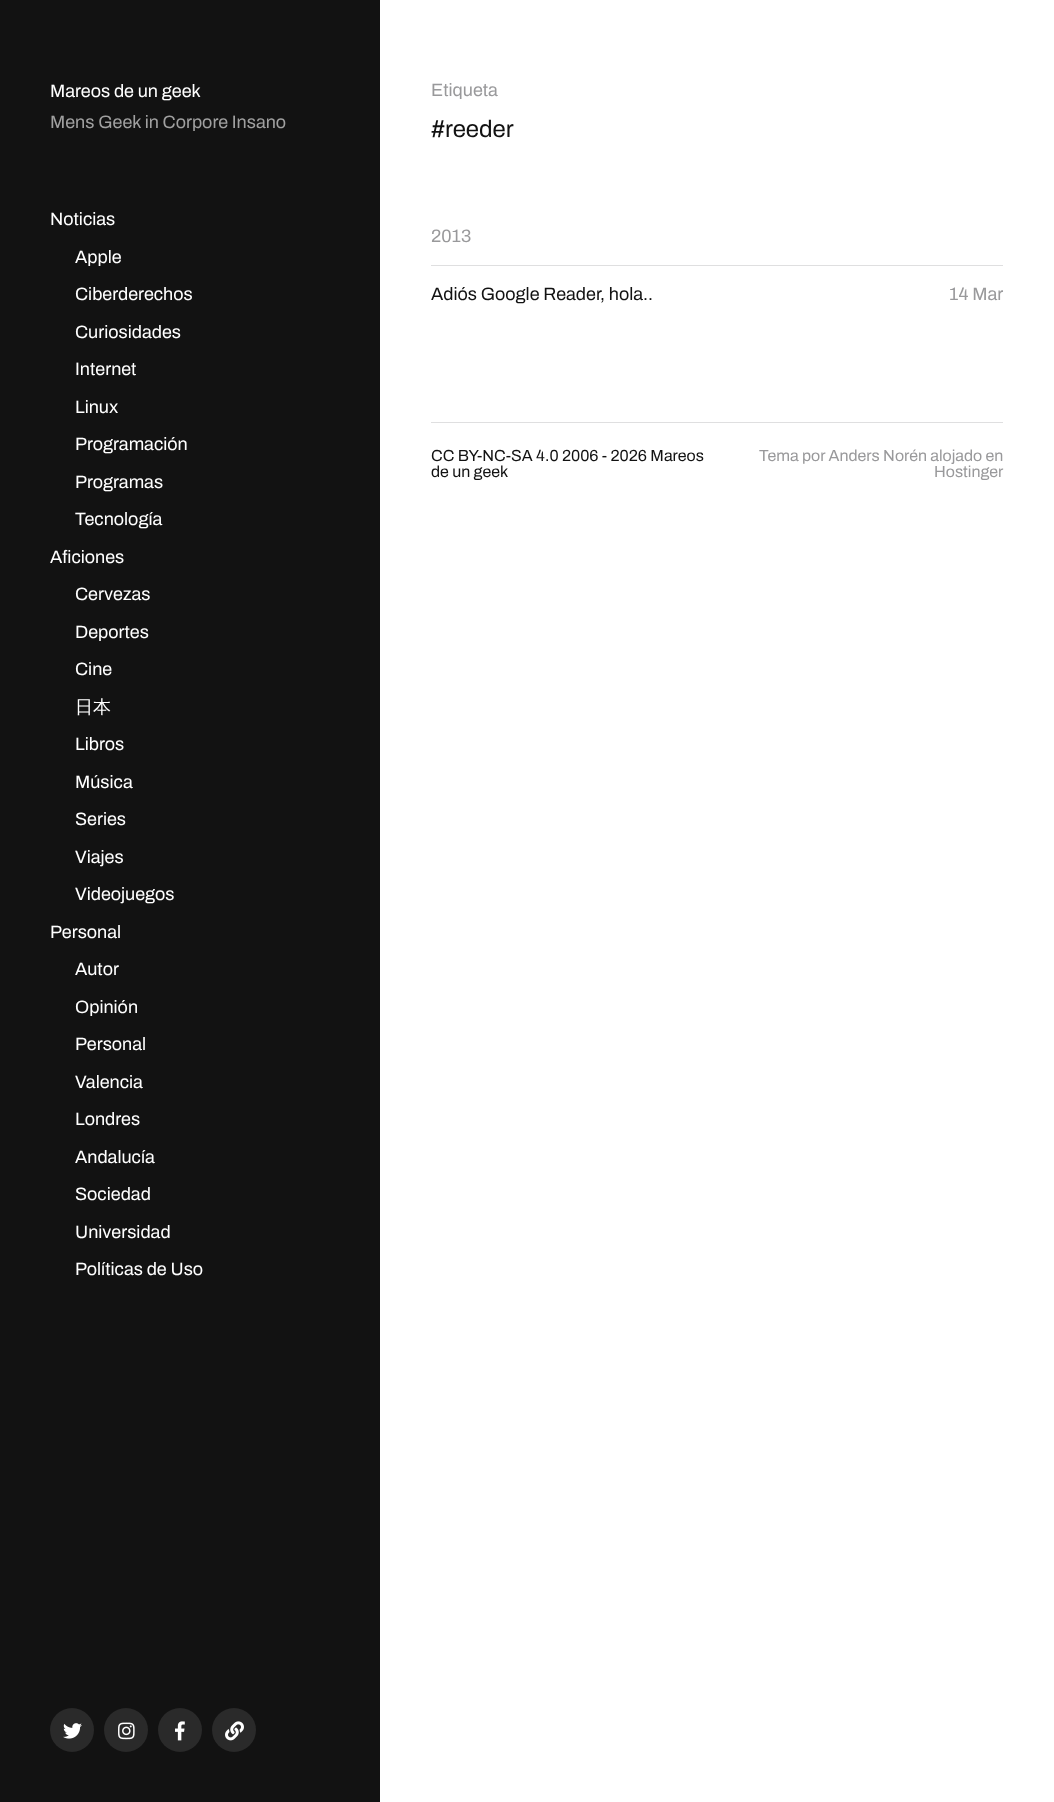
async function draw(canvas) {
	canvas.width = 1054;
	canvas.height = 1802;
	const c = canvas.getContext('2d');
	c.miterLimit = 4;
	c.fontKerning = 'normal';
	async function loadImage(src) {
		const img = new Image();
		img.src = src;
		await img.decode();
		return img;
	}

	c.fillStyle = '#fff';
	c.fillRect(0, 0, 1054, 1802);
	c.fillStyle = '#121212';
	c.fillRect(0, 0, 380, 1802);
	c.font = '600 18px Archivo';
	c.fillStyle = '#fff';
	c.fillText('Mareos de un geek', 50, 97);
	c.fillStyle = '#a0a0a0';
	c.fillText('Mens Geek in Corpore Insano', 50, 128);
	c.fillStyle = '#fff';
	for (const [text, x, y] of [
		['Noticias', 50, 225],
		['Apple', 75, 263],
		['Ciberderechos', 75, 300],
		['Curiosidades', 75, 338],
		['Internet', 75, 375],
		['Linux', 75, 413],
		['Programación', 75, 450],
		['Programas', 75, 488],
		['Tecnología', 75, 525],
		['Aficiones', 50, 563],
		['Cervezas', 75, 600],
		['Deportes', 75, 638],
		['Cine', 75, 675],
	]) {
		c.fillText(text, x, y);
	}
	c.font = '500 18px WenQuanYi Zen Hei';
	c.fillText('日本', 75, 713);
	c.font = '600 18px Archivo';
	for (const [text, x, y] of [
		['Libros', 75, 750],
		['Música', 75, 788],
		['Series', 75, 825],
		['Viajes', 75, 863],
		['Videojuegos', 75, 900],
		['Personal', 50, 938],
		['Autor', 75, 975],
		['Opinión', 75, 1013],
		['Personal', 75, 1050],
		['Valencia', 75, 1088],
		['Londres', 75, 1125],
		['Andalucía', 75, 1163],
		['Sociedad', 75, 1200],
		['Universidad', 75, 1238],
		['Políticas de Uso', 75, 1275],
	]) {
		c.fillText(text, x, y);
	}
	c.fillStyle = '#2a2a2a';
	c.beginPath();
	c.arc(72, 1730, 22, 0, 2 * Math.PI);
	c.fill();
	c.drawImage(await loadImage('img1.png'), 63, 1723, 19, 16);
	c.beginPath();
	c.arc(126, 1730, 22, 0, 2 * Math.PI);
	c.fill();
	c.drawImage(await loadImage('img2.png'), 118, 1722, 17, 18);
	c.beginPath();
	c.arc(180, 1730, 22, 0, 2 * Math.PI);
	c.fill();
	c.drawImage(await loadImage('img3.png'), 175, 1721, 10, 20);
	c.beginPath();
	c.arc(234, 1730, 22, 0, 2 * Math.PI);
	c.fill();
	c.drawImage(await loadImage('img4.png'), 225, 1721, 19, 20);
	c.fillStyle = '#99999b';
	c.fillText('Etiqueta', 431, 96);
	c.font = '600 24px Archivo';
	c.fillStyle = '#121212';
	c.fillText('#reeder', 431, 137);
	c.font = '600 18px Archivo';
	c.fillStyle = '#99999b';
	c.fillText('2013', 431, 242);
	c.fillStyle = '#dfdfe0';
	c.fillRect(431, 265, 572, 1);
	c.fillStyle = '#121212';
	c.fillText('Adiós Google Reader, hola..', 431, 300);
	c.fillStyle = '#99999b';
	c.fillText('14 Mar', 949, 300);
	c.fillStyle = '#dfdfe0';
	c.fillRect(431, 422, 572, 1);
	c.font = '600 16px Archivo';
	c.fillStyle = '#121212';
	c.fillText('CC BY-NC-SA 4.0 2006 - 2026 Mareos', 431, 461);
	c.fillText('de un geek', 431, 477);
	c.fillStyle = '#99999b';
	c.fillText('Tema por Anders Norén alojado en', 759, 461);
	c.fillText('Hostinger', 934, 477);
}

draw(document.querySelector('canvas'));
